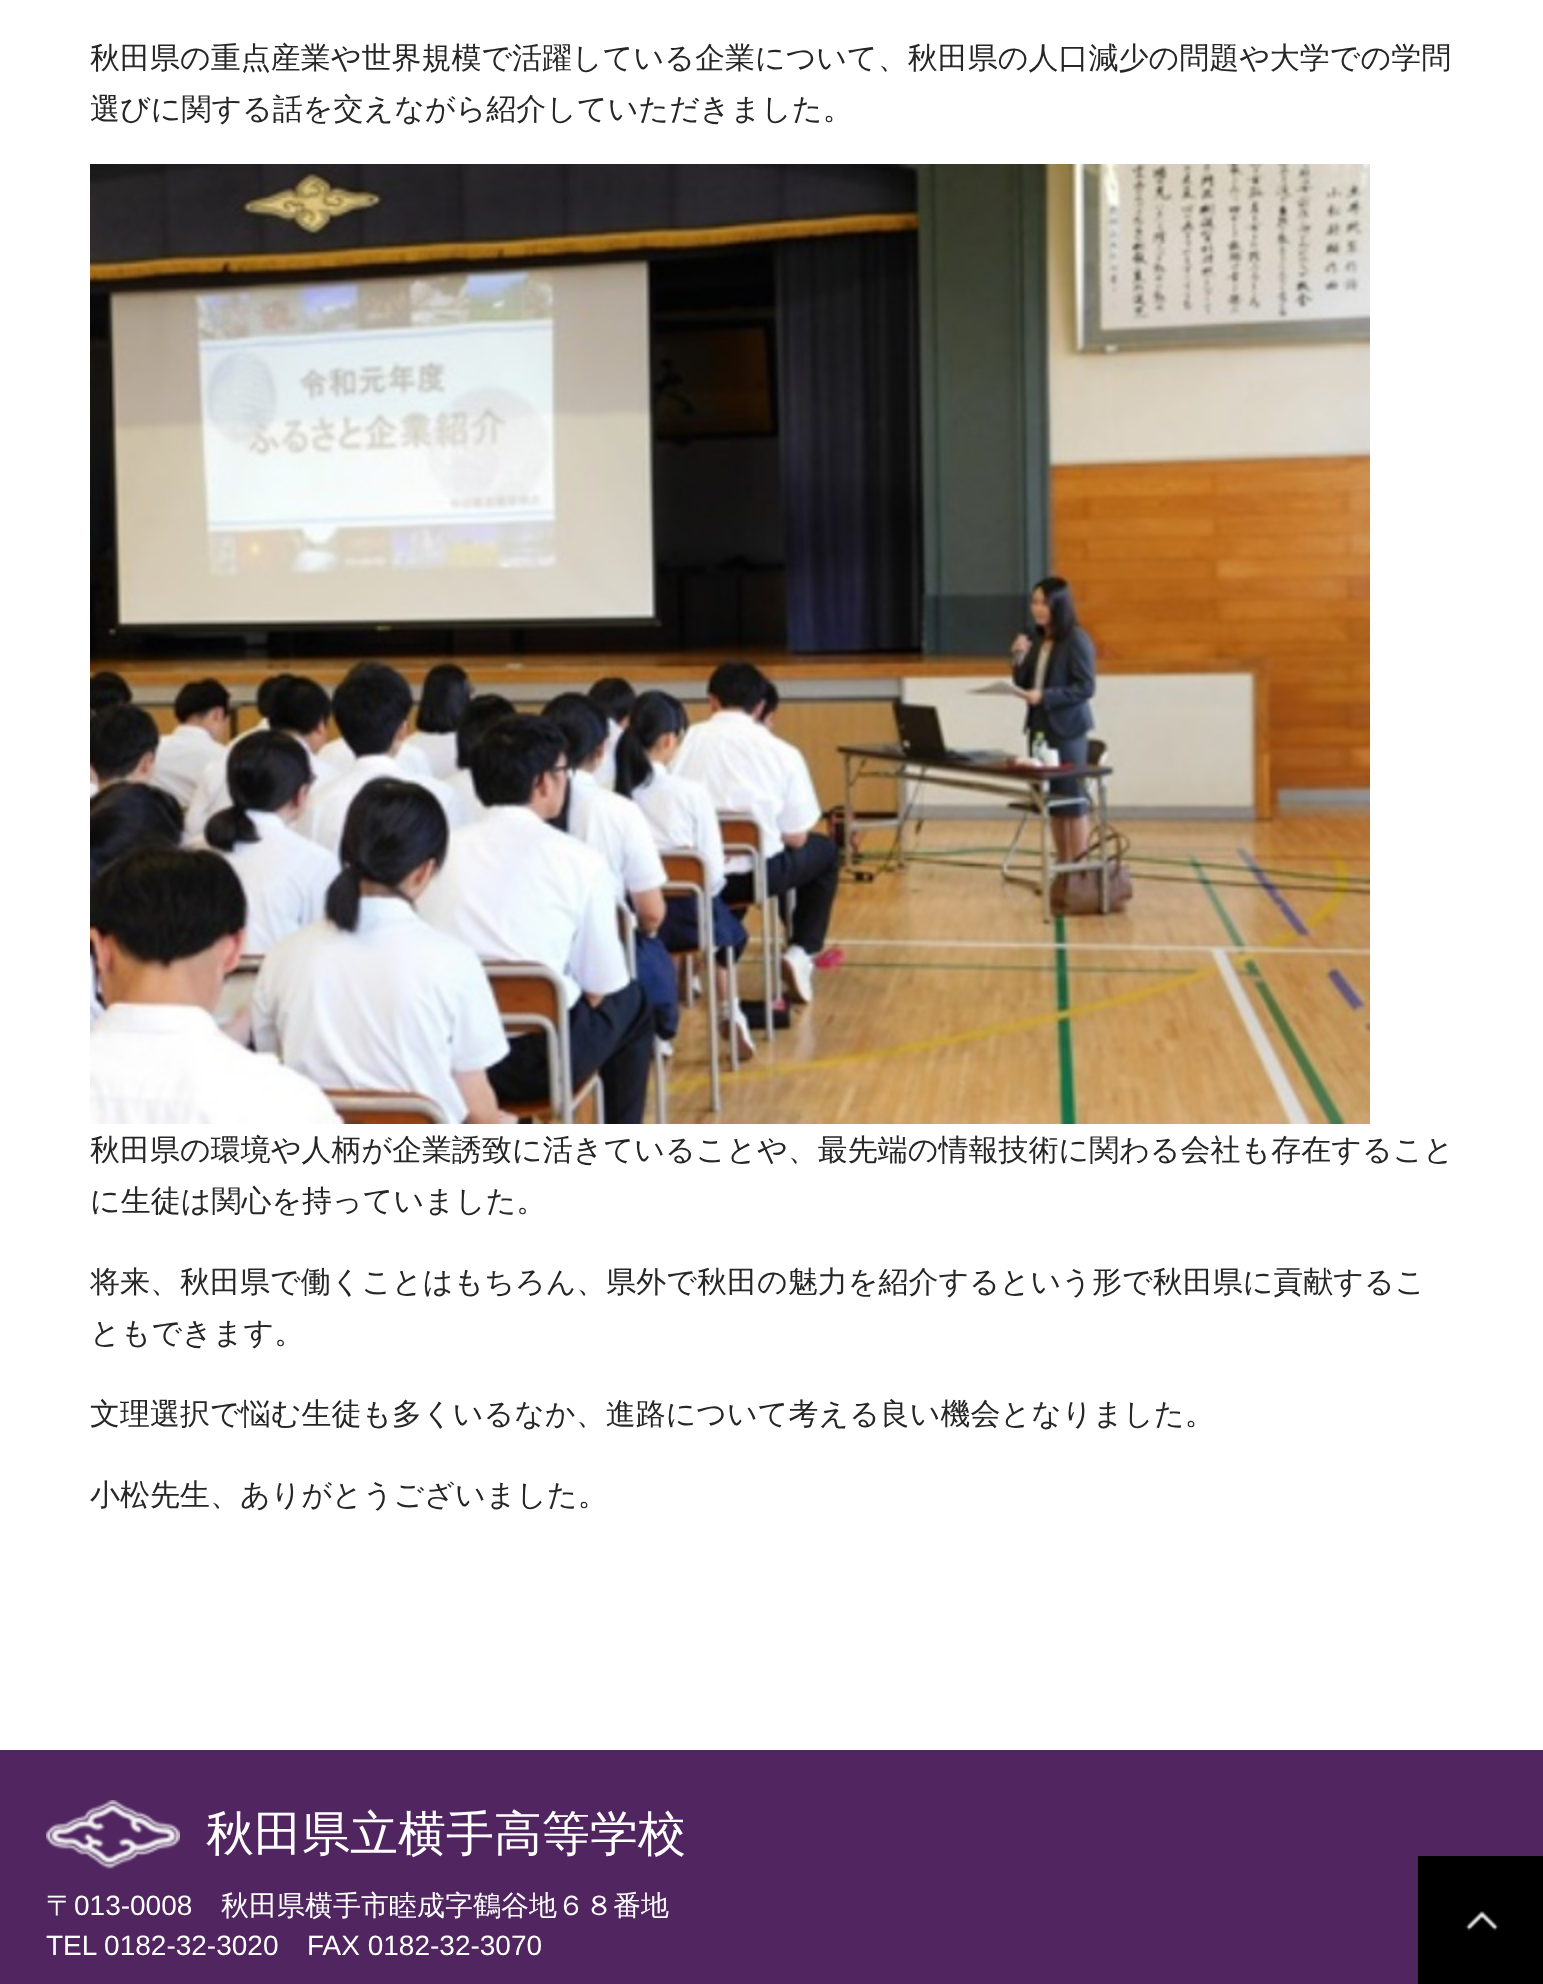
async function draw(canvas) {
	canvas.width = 1543;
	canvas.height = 1984;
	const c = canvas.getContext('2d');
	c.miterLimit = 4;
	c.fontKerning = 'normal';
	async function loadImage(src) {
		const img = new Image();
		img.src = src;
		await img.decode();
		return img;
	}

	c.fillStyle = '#fff';
	c.fillRect(0, 0, 1543, 1984);
	c.font = '500 30px WenQuanYi Zen Hei';
	c.fillStyle = '#262626';
	c.fillText('秋田県の重点産業や世界規模で活躍している企業について、秋田県の人口減少の問題や大学での学問', 90, 68);
	c.fillText('選びに関する話を交えながら紹介していただきました。', 90, 119);
	c.drawImage(await loadImage('img1.png'), 90, 164, 1280, 960);
	for (const [text, x, y] of [
		['秋田県の環境や人柄が企業誘致に活きていることや、最先端の情報技術に関わる会社も存在すること', 90, 1160],
		['に生徒は関心を持っていました。', 90, 1211],
		['将来、秋田県で働くことはもちろん、県外で秋田の魅力を紹介するという形で秋田県に貢献するこ', 90, 1292],
		['ともできます。', 90, 1343],
		['文理選択で悩む生徒も多くいるなか、進路について考える良い機会となりました。', 90, 1424],
		['小松先生、ありがとうございました。', 90, 1505],
	]) {
		c.fillText(text, x, y);
	}
	c.fillStyle = '#512560';
	c.fillRect(0, 1750, 1543, 234);
	c.drawImage(await loadImage('img2.png'), 46, 1800, 134, 69);
	c.font = '500 48px WenQuanYi Zen Hei';
	c.fillStyle = '#fff';
	c.fillText('秋田県立横手高等学校', 206, 1850);
	c.font = '500 28px WenQuanYi Zen Hei';
	c.fillText('〒', 46, 1915);
	c.font = '28px Liberation Sans';
	c.fillText('013-0008', 74, 1915);
	c.font = '500 28px WenQuanYi Zen Hei';
	c.fillText('秋田県横手市睦成字鶴谷地６８番地', 221, 1915);
	c.font = '28px Liberation Sans';
	c.fillText('TEL 0182-32-3020', 46, 1955);
	c.fillText('FAX 0182-32-3070', 307, 1955);
	c.drawImage(await loadImage('img3.png'), 1418, 1856, 125, 128);
}

draw(document.querySelector('canvas'));
